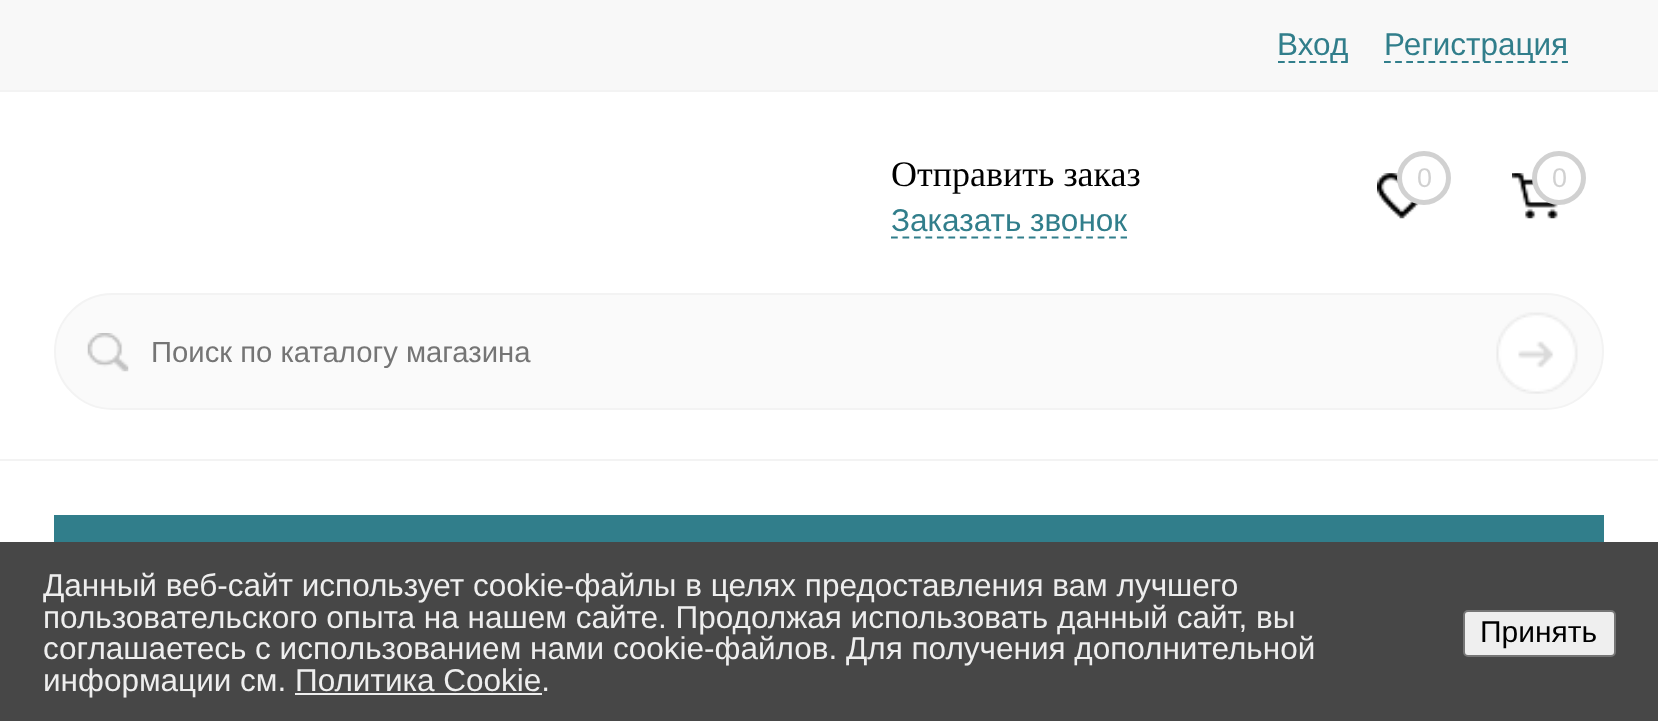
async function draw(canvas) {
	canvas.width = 1658;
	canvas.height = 721;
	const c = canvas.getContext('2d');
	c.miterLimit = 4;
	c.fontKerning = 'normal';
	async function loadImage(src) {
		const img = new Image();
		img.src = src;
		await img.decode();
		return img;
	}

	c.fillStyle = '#fff';
	c.fillRect(0, 0, 1658, 721);
	c.fillStyle = '#f8f8f8';
	c.fillRect(0, 0, 1658, 90);
	c.fillStyle = '#f3f3f3';
	c.fillRect(0, 90, 1658, 2);
	c.font = '31.5px Liberation Sans';
	c.fillStyle = '#317e8b';
	c.fillText('Вход', 1277, 55);
	c.beginPath();
	c.moveTo(1278, 62);
	c.lineTo(1348, 62);
	c.strokeStyle = '#317e8b';
	c.lineWidth = 2.2;
	c.setLineDash([6.75, 3.76]);
	c.stroke();
	c.fillText('Регистрация', 1384, 55);
	c.beginPath();
	c.moveTo(1384, 62);
	c.lineTo(1568, 62);
	c.setLineDash([6.75, 4.37]);
	c.stroke();
	c.fillStyle = '#f3f3f3';
	c.fillRect(0, 459, 1658, 2);
	c.font = '36px Liberation Serif';
	c.fillStyle = '#000';
	c.fillText('Отправить заказ', 891, 186);
	c.font = '31.5px Liberation Sans';
	c.fillStyle = '#317e8b';
	c.fillText('Заказать звонок', 891, 231);
	c.beginPath();
	c.moveTo(891, 237.5);
	c.lineTo(1127, 237.5);
	c.setLineDash([6.75, 4.73]);
	c.stroke();
	c.drawImage(await loadImage('img1.png'), 1377, 173, 42, 46);
	c.fillStyle = '#fff';
	c.beginPath();
	c.arc(1424, 178, 24.5, 0, 2 * Math.PI);
	c.fill();
	c.strokeStyle = '#d1d1d1';
	c.lineWidth = 5;
	c.setLineDash([]);
	c.stroke();
	c.font = '27px Liberation Sans';
	c.fillStyle = '#d1d1d1';
	c.fillText('0', 1417, 187);
	c.drawImage(await loadImage('img2.png'), 1512, 173, 46, 46);
	c.fillStyle = '#fff';
	c.beginPath();
	c.arc(1559, 178, 24.5, 0, 2 * Math.PI);
	c.fill();
	c.stroke();
	c.fillStyle = '#d1d1d1';
	c.fillText('0', 1552, 187);
	c.fillStyle = '#fafafa';
	c.beginPath();
	c.roundRect(55, 294, 1548, 115, 57.5);
	c.fill();
	c.strokeStyle = '#f3f3f3';
	c.lineWidth = 2;
	c.stroke();
	c.drawImage(await loadImage('img3.png'), 87, 333, 42, 39);
	c.font = '29.25px Liberation Sans';
	c.fillStyle = '#757575';
	c.fillText('Поиск по каталогу магазина', 151, 362);
	c.drawImage(await loadImage('img4.png'), 1496, 312, 82, 82);
	c.fillStyle = '#317e8b';
	c.fillRect(54, 515, 1550, 27);
	c.fillStyle = '#474747';
	c.fillRect(0, 542, 1658, 179);
	c.font = '31.5px Liberation Sans';
	c.fillStyle = '#eee';
	for (const [text, x, y] of [
		['Данный веб-сайт использует cookie-файлы в целях предоставления вам лучшего', 43, 596],
		['пользовательского опыта на нашем сайте. Продолжая использовать данный сайт, вы', 43, 628],
		['соглашаетесь с использованием нами cookie-файлов. Для получения дополнительной', 43, 659],
		['информации см. Политика Cookie.', 43, 691],
	]) {
		c.fillText(text, x, y);
	}
	c.fillRect(295, 693, 247, 2);
	c.fillStyle = '#efefef';
	c.beginPath();
	c.roundRect(1464, 611, 151, 45, 4);
	c.fill();
	c.strokeStyle = '#767676';
	c.stroke();
	c.font = '30px Liberation Sans';
	c.fillStyle = '#000';
	c.fillText('Принять', 1480, 642);
}

draw(document.querySelector('canvas'));
